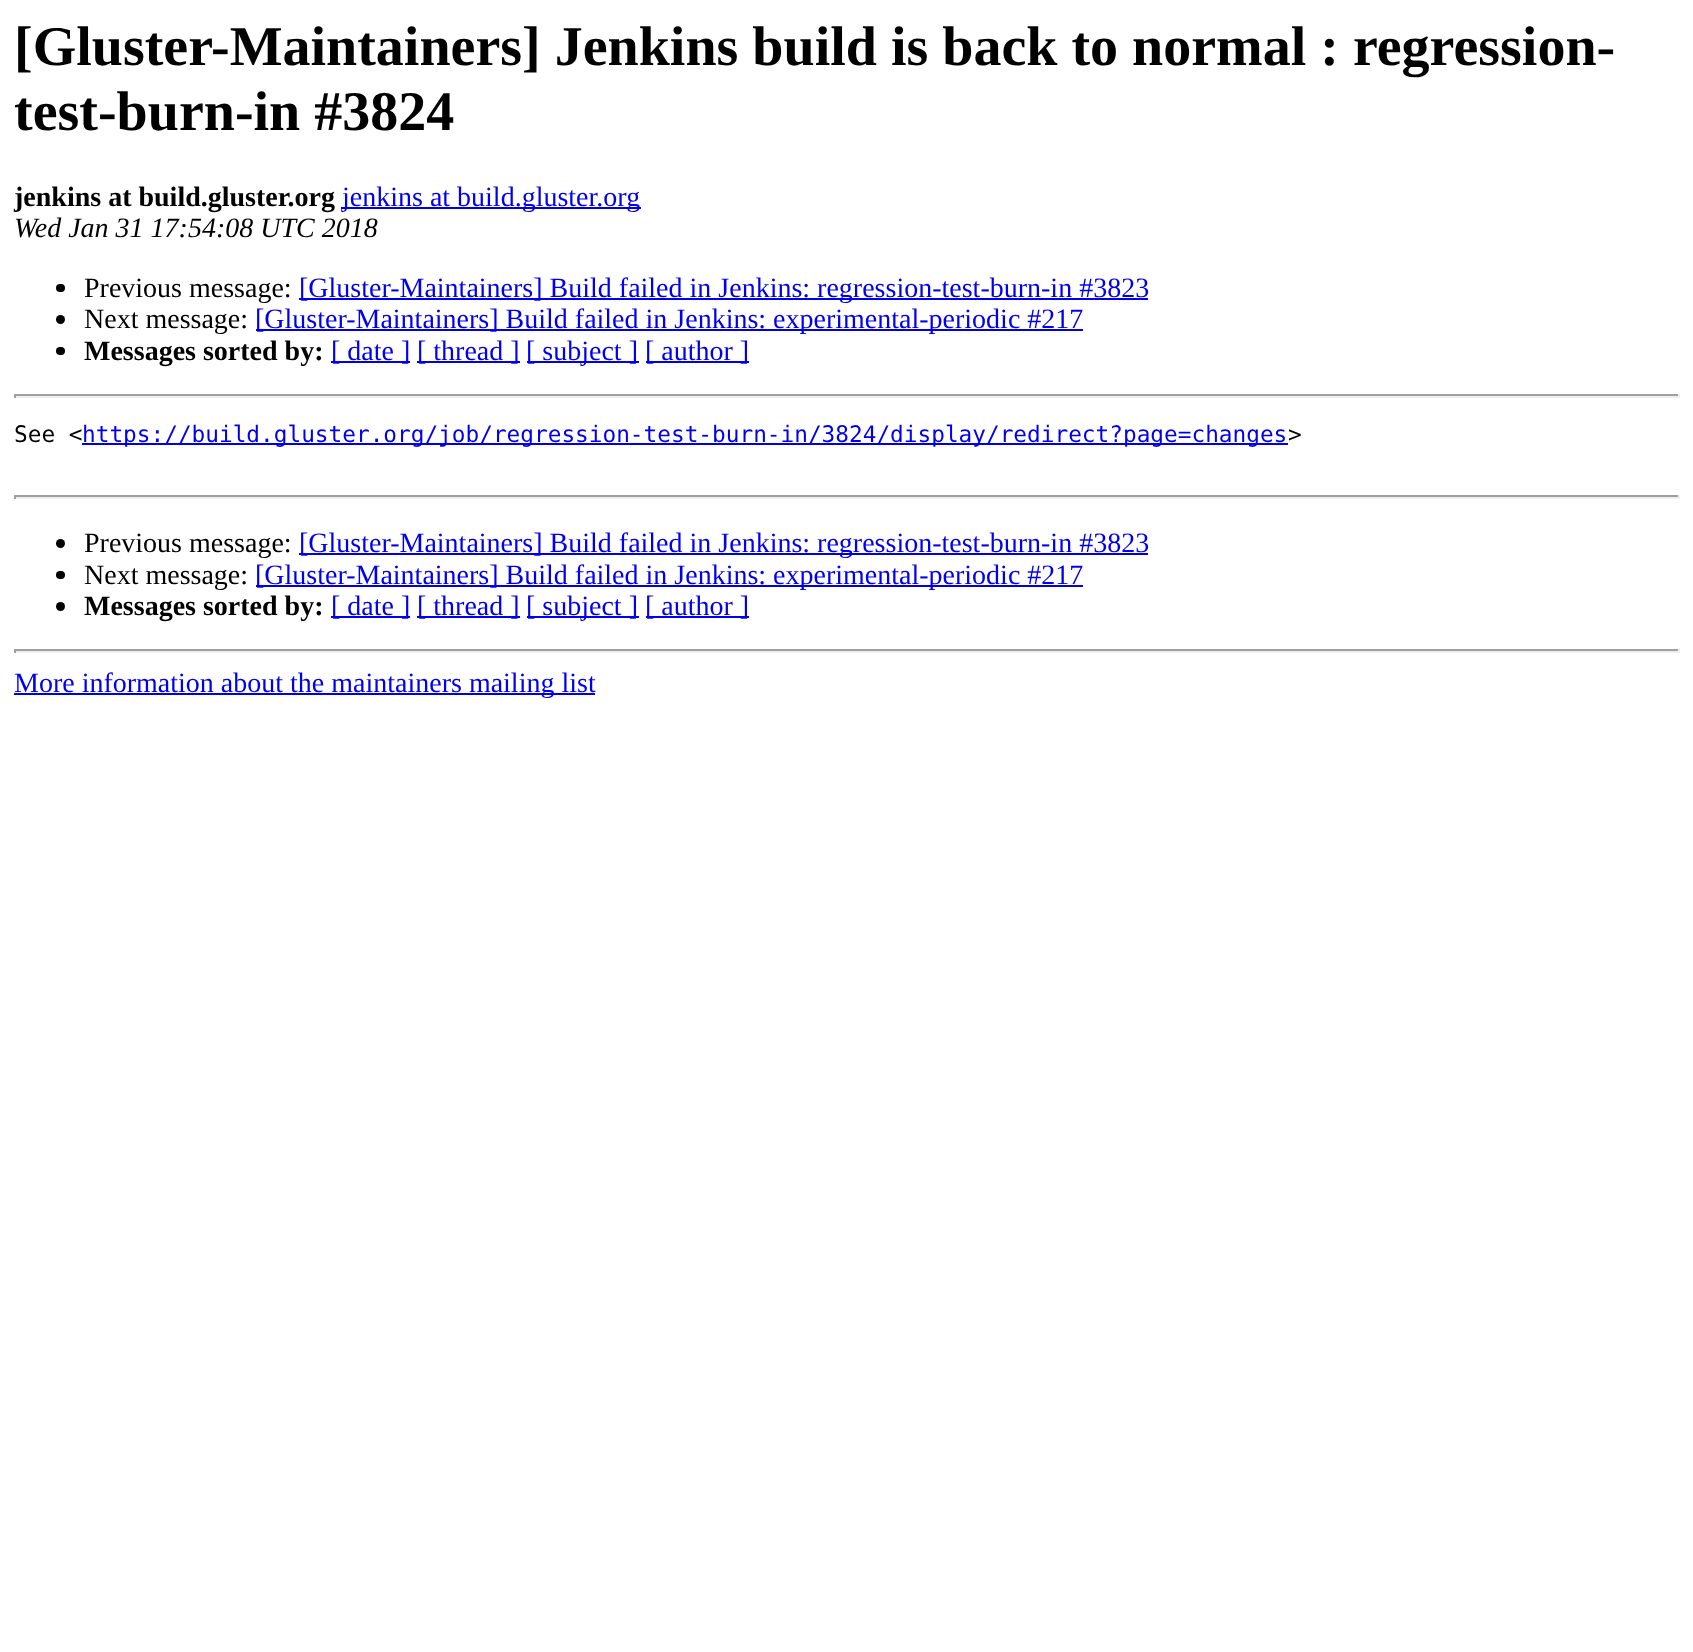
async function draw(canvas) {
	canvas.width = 1693;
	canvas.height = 1652;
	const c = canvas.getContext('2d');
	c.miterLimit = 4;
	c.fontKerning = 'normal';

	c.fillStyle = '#fff';
	c.fillRect(0, 0, 1693, 1652);
	c.font = 'bold 56px Liberation Serif';
	c.fillStyle = '#000';
	c.fillText('[Gluster-Maintainers] Jenkins build is back to normal : regression-', 14, 65);
	c.fillText('test-burn-in #3824', 14, 130);
	c.font = 'bold 28px Liberation Serif';
	c.fillText('jenkins at build.gluster.org', 14, 206);
	c.fillStyle = '#00e';
	c.fillRect(341, 207, 300, 2);
	c.font = '28px Liberation Serif';
	c.fillText('jenkins at build.gluster.org', 342, 206);
	c.font = 'italic 28px Liberation Serif';
	c.fillStyle = '#000';
	c.fillText('Wed Jan 31 17:54:08 UTC 2018', 14, 237);
	c.beginPath();
	c.roundRect(56, 284, 9, 8, 4);
	c.fill();
	c.font = '28px Liberation Serif';
	c.fillText('Previous message:', 84, 297);
	c.fillStyle = '#00e';
	c.fillRect(299, 298, 849, 2);
	c.fillText('[Gluster-Maintainers] Build failed in Jenkins: regression-test-burn-in #3823', 299, 297);
	c.fillStyle = '#000';
	c.beginPath();
	c.arc(60.5, 319.5, 4.5, 0, 2 * Math.PI);
	c.fill();
	c.fillText('Next message:', 84, 328);
	c.fillStyle = '#00e';
	c.fillRect(256, 329, 827, 2);
	c.fillText('[Gluster-Maintainers] Build failed in Jenkins: experimental-periodic #217', 255, 328);
	c.fillStyle = '#000';
	c.beginPath();
	c.roundRect(56, 347, 9, 8, 4);
	c.fill();
	c.font = 'bold 28px Liberation Serif';
	c.fillText('Messages sorted by:', 84, 360);
	c.fillStyle = '#00e';
	c.fillRect(331, 361, 79, 2);
	c.font = '28px Liberation Serif';
	c.fillText('[ date ]', 331, 360);
	c.fillRect(417, 361, 103, 2);
	c.fillText('[ thread ]', 417, 360);
	c.fillRect(527, 361, 112, 2);
	c.fillText('[ subject ]', 526, 360);
	c.fillRect(646, 361, 103, 2);
	c.fillText('[ author ]', 645, 360);
	for (const [x, y, w, h, color] of [
		[14, 394, 1666, 2, '#9f9f9f'],
		[1678, 394, 2, 4, '#eee'],
		[14, 396, 1666, 2, '#eee'],
		[14, 394, 2, 4, '#9f9f9f'],
	]) {
		c.fillStyle = color;
		c.fillRect(x, y, w, h);
	}
	c.font = '22.75px DejaVu Sans Mono';
	c.fillStyle = '#000';
	c.fillText('See <', 14, 442);
	c.fillStyle = '#00e';
	c.fillRect(82, 443, 1206, 2);
	c.fillText('https://build.gluster.org/job/regression-test-burn-in/3824/display/redirect?page=changes', 82, 442);
	c.fillStyle = '#000';
	c.fillText('>', 1288, 442);
	for (const [x, y, w, h, color] of [
		[14, 495, 1666, 2, '#9f9f9f'],
		[1678, 495, 2, 4, '#eee'],
		[14, 497, 1666, 2, '#eee'],
		[14, 495, 2, 4, '#9f9f9f'],
	]) {
		c.fillStyle = color;
		c.fillRect(x, y, w, h);
	}
	c.fillStyle = '#000';
	c.beginPath();
	c.arc(60.5, 543.5, 4.5, 0, 2 * Math.PI);
	c.fill();
	c.font = '28px Liberation Serif';
	c.fillText('Previous message:', 84, 552);
	c.fillStyle = '#00e';
	c.fillRect(299, 553, 849, 2);
	c.fillText('[Gluster-Maintainers] Build failed in Jenkins: regression-test-burn-in #3823', 299, 552);
	c.fillStyle = '#000';
	c.beginPath();
	c.roundRect(56, 571, 9, 8, 4);
	c.fill();
	c.fillText('Next message:', 84, 584);
	c.fillStyle = '#00e';
	c.fillRect(256, 585, 827, 2);
	c.fillText('[Gluster-Maintainers] Build failed in Jenkins: experimental-periodic #217', 255, 584);
	c.fillStyle = '#000';
	c.beginPath();
	c.arc(60.5, 606.5, 4.5, 0, 2 * Math.PI);
	c.fill();
	c.font = 'bold 28px Liberation Serif';
	c.fillText('Messages sorted by:', 84, 615);
	c.fillStyle = '#00e';
	c.fillRect(331, 616, 79, 2);
	c.font = '28px Liberation Serif';
	c.fillText('[ date ]', 331, 615);
	c.fillRect(417, 616, 103, 2);
	c.fillText('[ thread ]', 417, 615);
	c.fillRect(527, 616, 112, 2);
	c.fillText('[ subject ]', 526, 615);
	c.fillRect(646, 616, 103, 2);
	c.fillText('[ author ]', 645, 615);
	for (const [x, y, w, h, color] of [
		[14, 649, 1666, 2, '#9f9f9f'],
		[1678, 649, 2, 4, '#eee'],
		[14, 651, 1666, 2, '#eee'],
		[14, 649, 2, 4, '#9f9f9f'],
		[14, 693, 581, 2, '#00e'],
	]) {
		c.fillStyle = color;
		c.fillRect(x, y, w, h);
	}
	c.fillText('More information about the maintainers mailing list', 14, 692);
}

draw(document.querySelector('canvas'));
